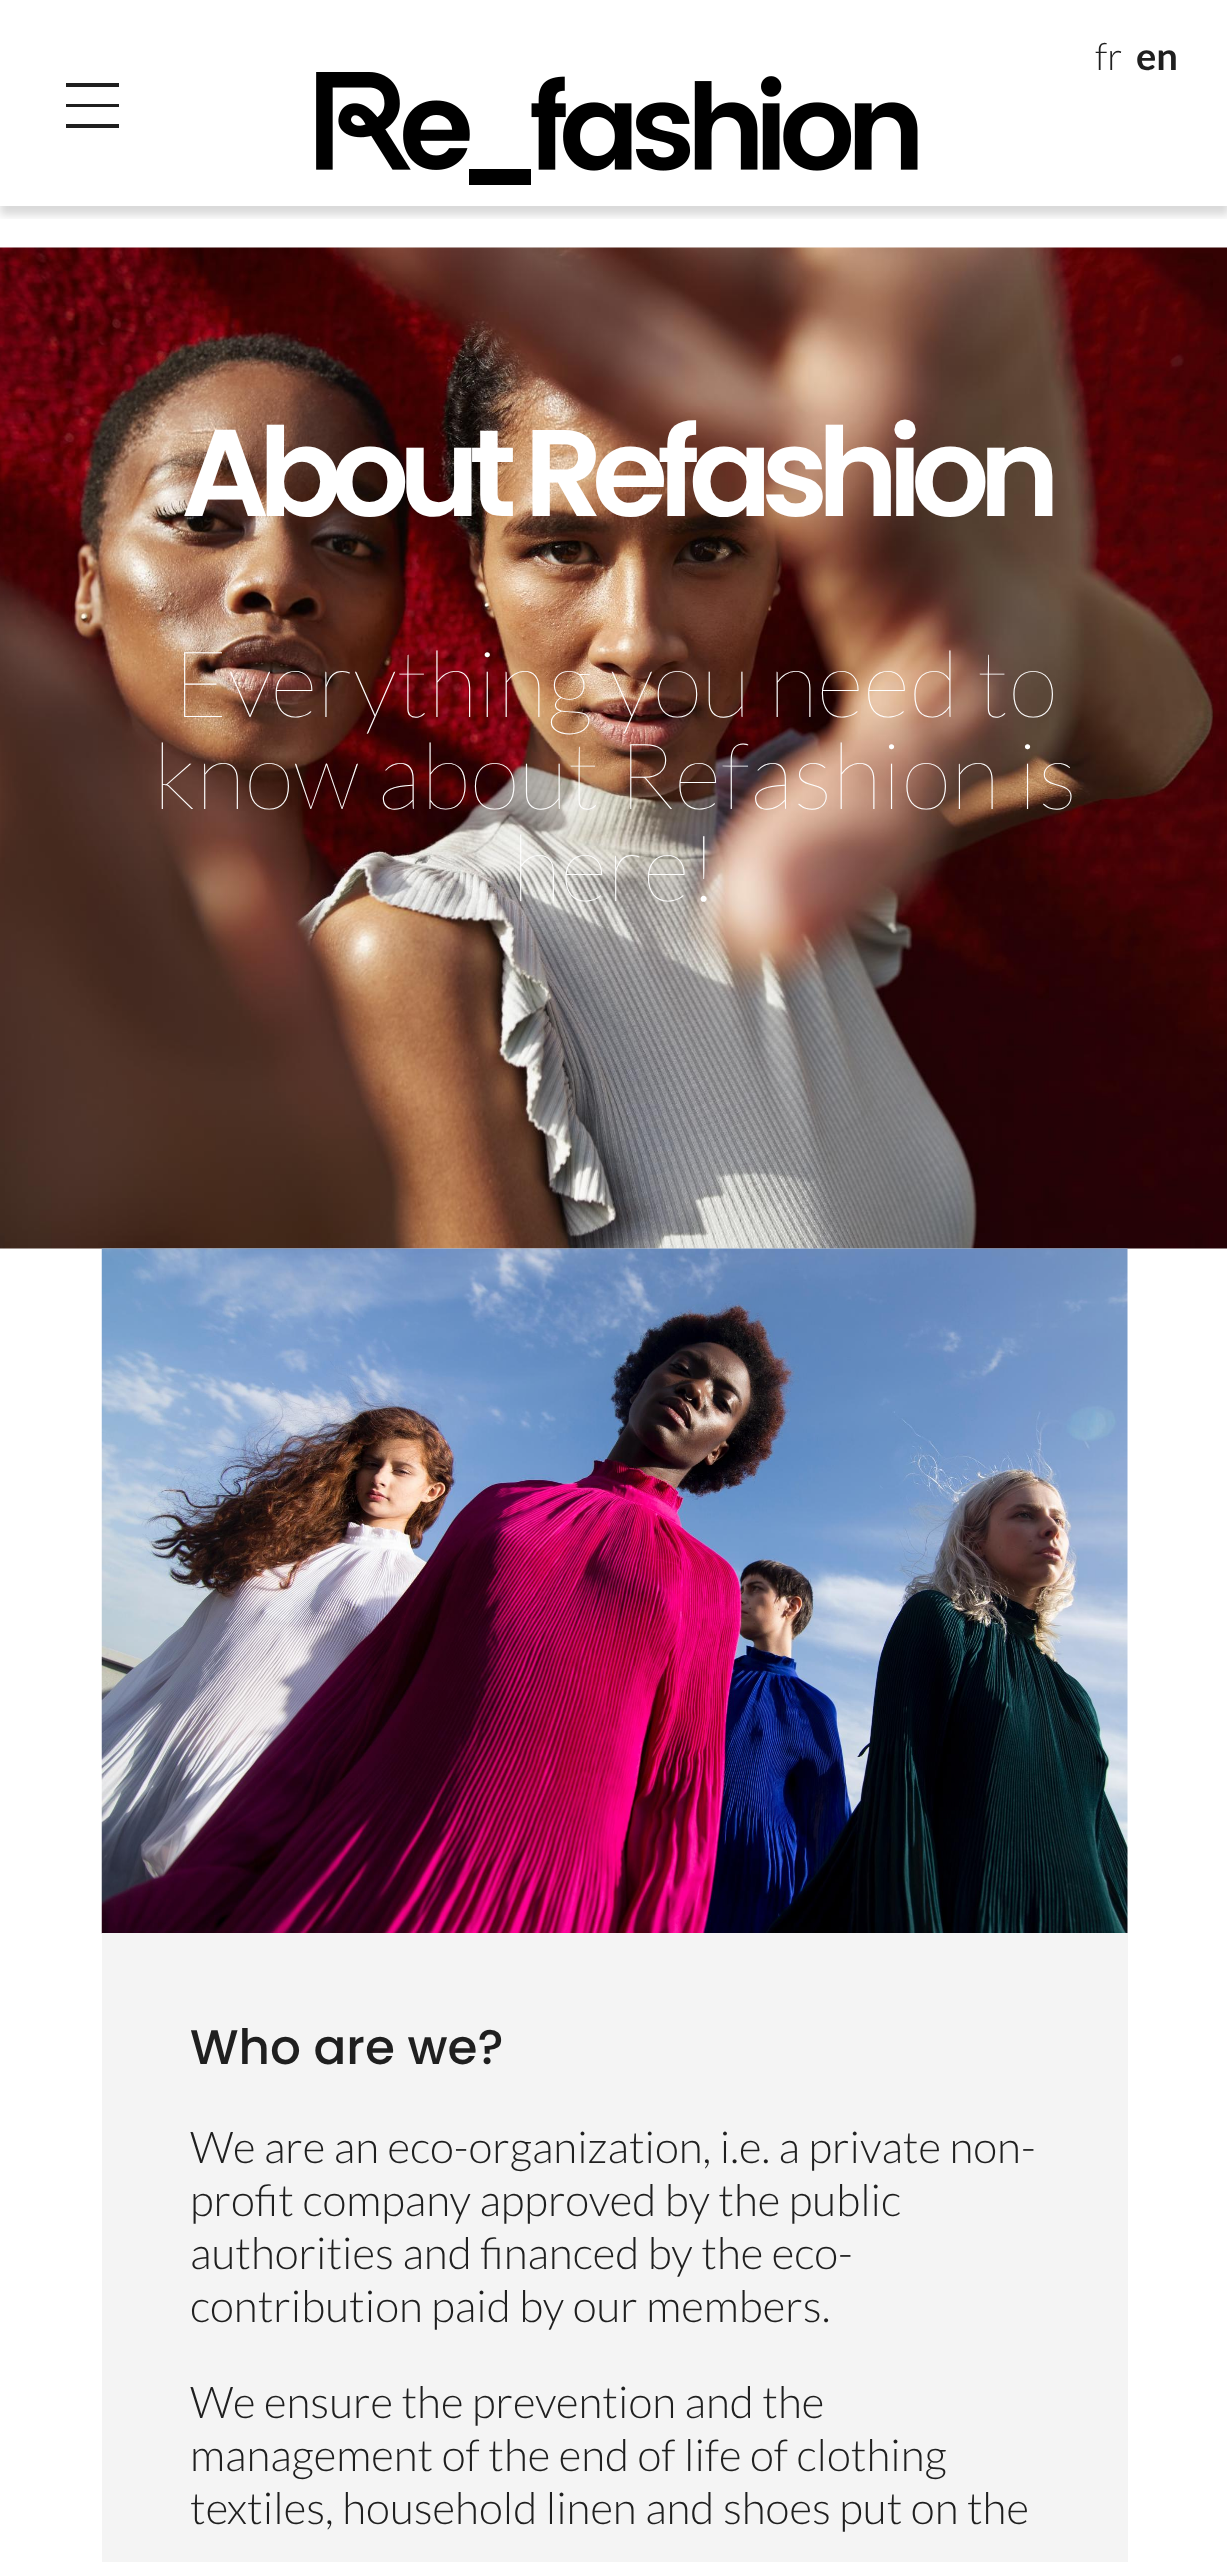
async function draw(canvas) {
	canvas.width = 1227;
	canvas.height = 2562;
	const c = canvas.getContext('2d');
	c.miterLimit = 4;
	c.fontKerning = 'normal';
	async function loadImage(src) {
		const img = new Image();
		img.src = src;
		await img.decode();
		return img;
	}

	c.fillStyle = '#fff';
	c.fillRect(0, 0, 1227, 2562);
	c.save();
	c.beginPath();
	c.rect(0, 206, 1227, 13);
	c.clip();
	c.fillStyle = '#00000026';
	c.filter = 'blur(4px)';
	c.beginPath();
	c.rect(0, 8, 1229, 207);
	c.fill();
	c.filter = 'none';
	c.restore();
	c.font = '300 38px Lato';
	c.fillStyle = '#1f1f1f';
	c.fillText('fr', 1095, 70);
	c.font = 'bold 38px Lato';
	c.fillText('en', 1136, 70);
	c.beginPath();
	c.moveTo(66, 107);
	c.lineTo(119, 107);
	c.lineTo(119, 104);
	c.lineTo(66, 104);
	c.closePath();
	c.moveTo(66, 128);
	c.lineTo(119, 128);
	c.lineTo(119, 124);
	c.lineTo(66, 124);
	c.closePath();
	c.moveTo(66, 87);
	c.lineTo(119, 87);
	c.lineTo(119, 83);
	c.lineTo(66, 83);
	c.closePath();
	c.fill();
	c.drawImage(await loadImage('img1.png'), 316, 72, 602, 113);
	c.drawImage(await loadImage('img2.png'), 0, 247, 1227, 1002);
	c.letterSpacing = '-11px';
	c.font = '600 123.25px Poppins';
	c.fillStyle = '#fff';
	c.fillText('About Refashion', 181, 516);
	c.letterSpacing = '0px';
	c.font = '100 92.5px Lato';
	for (const [text, x, y] of [
		['Everything you need to', 173, 717],
		['know about Refashion is', 153, 809],
		['here!', 512, 901],
	]) {
		c.fillText(text, x, y);
	}
	c.drawImage(await loadImage('img3.png'), 101, 1248, 1027, 686);
	c.fillStyle = '#f4f4f4';
	c.fillRect(102, 1933, 1026, 629);
	c.font = '500 48.5px Poppins';
	c.fillStyle = '#1f1f1f';
	c.fillText('Who are we?', 190, 2064);
	c.font = '300 44px Lato';
	for (const [text, x, y] of [
		['We are an eco-organization, i.e. a private non-', 190, 2163],
		['profit company approved by the public', 190, 2216],
		['authorities and financed by the eco-', 190, 2269],
		['contribution paid by our members.', 190, 2322],
		['We ensure the prevention and the', 190, 2418],
		['management of the end of life of clothing', 190, 2471],
		['textiles, household linen and shoes put on the', 190, 2524],
	]) {
		c.fillText(text, x, y);
	}
}

draw(document.querySelector('canvas'));
